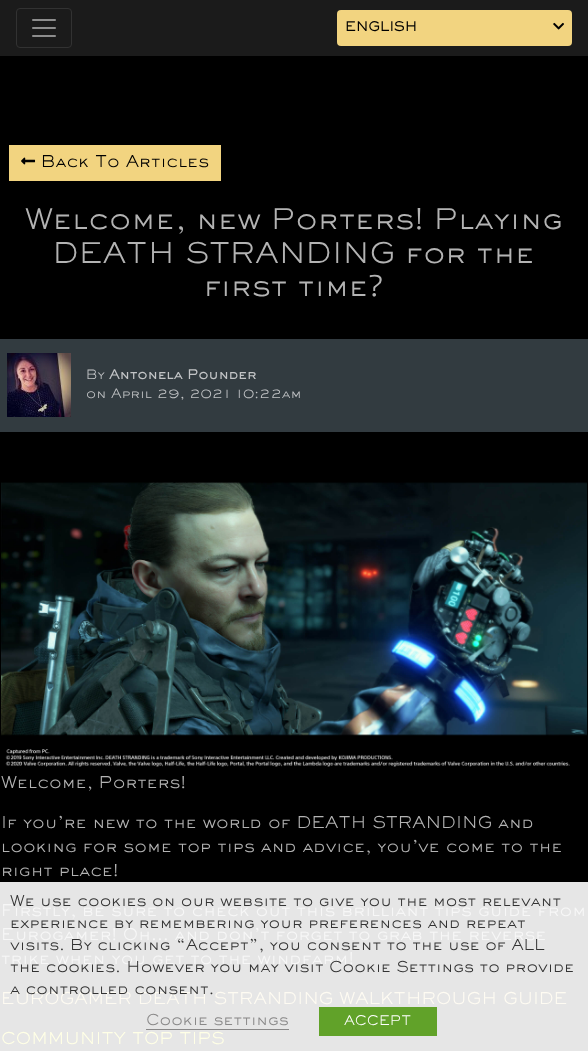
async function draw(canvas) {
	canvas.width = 588;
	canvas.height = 1051;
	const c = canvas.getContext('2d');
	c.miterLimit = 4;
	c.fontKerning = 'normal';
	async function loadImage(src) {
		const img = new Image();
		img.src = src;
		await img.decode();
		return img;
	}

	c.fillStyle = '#000';
	c.fillRect(0, 0, 588, 1051);
	c.fillStyle = '#e6e6e6';
	c.fillRect(0, 882, 588, 169);
	c.fillStyle = '#1b1b1b';
	c.fillRect(0, 0, 588, 56);
	c.beginPath();
	c.roundRect(16.5, 8.5, 55, 39, 3.5);
	c.strokeStyle = '#323232';
	c.stroke();
	c.drawImage(await loadImage('img1.png'), 32, 19, 24, 18);
	c.fillStyle = '#f2d480';
	c.beginPath();
	c.roundRect(337, 10, 235, 36, 4);
	c.fill();
	c.font = 'bold 12.75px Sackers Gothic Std';
	c.fillStyle = '#000';
	c.fillText('ENGLISH', 345, 31);
	c.drawImage(await loadImage('img2.png'), 553, 22, 11, 8);
	c.fillStyle = '#f2d480';
	c.fillRect(9, 145, 212, 36);
	c.drawImage(await loadImage('img3.png'), 21, 157, 15, 8);
	c.font = '300 16px Sackers Gothic Std';
	c.fillStyle = '#000';
	c.fillText('Back To Articles', 41, 167);
	c.font = '300 28px Sackers Gothic Std';
	c.fillStyle = '#b3b3b3';
	for (const [text, x, y] of [
		['Welcome, new Porters! Playing', 25, 229],
		['DEATH STRANDING for the', 53, 263],
		['first time?', 204, 296],
	]) {
		c.fillText(text, x, y);
	}
	c.fillStyle = '#323b40';
	c.fillRect(0, 339, 588, 93);
	c.drawImage(await loadImage('img4.png'), 7, 353, 64, 64);
	c.font = '300 12.75px Sackers Gothic Std';
	c.fillStyle = '#c2c4c6';
	c.fillText('By', 86, 379);
	c.font = 'bold 12.75px Sackers Gothic Std';
	c.fillText('Antonela Pounder', 109, 379);
	c.font = '300 12.75px Sackers Gothic Std';
	c.fillText('on April 29, 2021 10:22am', 86, 398);
	c.drawImage(await loadImage('img5.png'), 1, 482, 586, 285);
	c.font = '300 16px Sackers Gothic Std';
	c.fillStyle = '#b3b3b3';
	for (const [text, x, y] of [
		['Welcome, Porters!', 1, 788],
		['If you’re new to the world of DEATH STRANDING and', 1, 828],
		['looking for some top tips and advice, you’ve come to the', 1, 852],
		['right place!', 1, 876],
	]) {
		c.fillText(text, x, y);
	}
	c.fillStyle = '#f7f7f7';
	for (const [text, x, y] of [
		['Firstly, be sure to check out this brilliant tips guide from', 1, 916],
		['Eurogamer! Oh… and don’t forget to grab the reverse', 1, 940],
		['trike when you get to the windfarm!', 1, 964],
	]) {
		c.fillText(text, x, y);
	}
	c.fillStyle = '#fefbf2';
	c.fillText('EUROGAMER DEATH STRANDING WALKTHROUGH GUIDE', 1, 1004);
	c.fillStyle = '#ffffe6';
	c.fillText('COMMUNITY TOP TIPS', 1, 1044);
	c.font = '300 14.65px Sackers Gothic Std';
	c.fillStyle = '#333';
	for (const [text, x, y] of [
		['We use cookies on our website to give you the most relevant', 10, 906],
		['experience by remembering your preferences and repeat', 10, 928],
		['visits. By clicking “Accept”, you consent to the use of ALL', 10, 950],
		['the cookies. However you may visit Cookie Settings to provide', 10, 972],
		['a controlled consent.', 10, 994],
	]) {
		c.fillText(text, x, y);
	}
	c.fillStyle = '#898888';
	c.fillText('Cookie settings', 146, 1025);
	c.fillRect(146, 1029, 143, 1);
	c.fillStyle = '#61a229';
	c.fillRect(319, 1007, 118, 29);
	c.font = '300 13px Sackers Gothic Std';
	c.fillStyle = '#fff';
	c.fillText('ACCEPT', 344, 1025);
}

draw(document.querySelector('canvas'));
